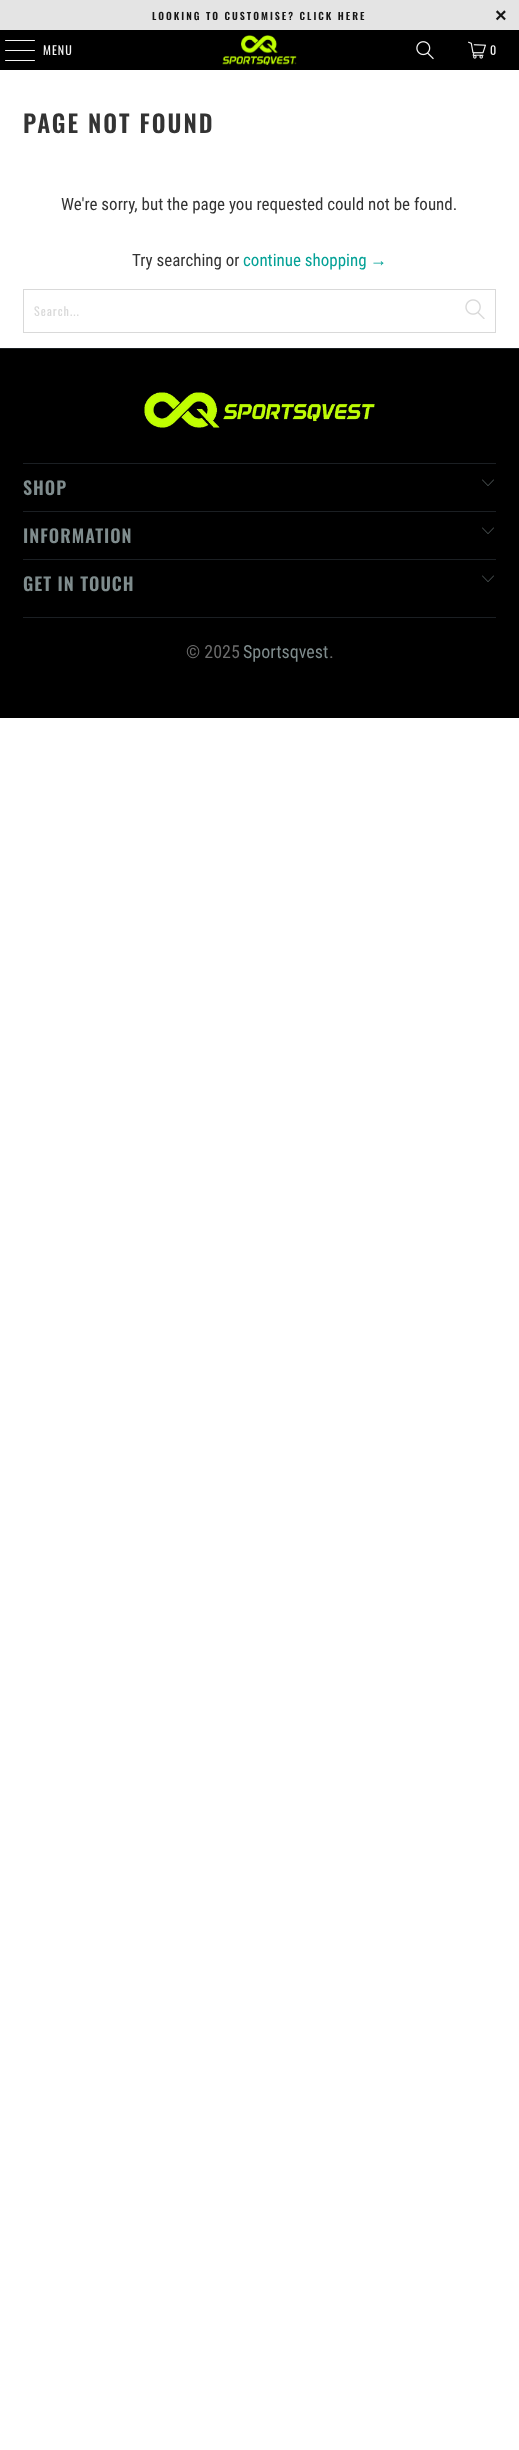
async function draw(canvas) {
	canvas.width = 519;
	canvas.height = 2450;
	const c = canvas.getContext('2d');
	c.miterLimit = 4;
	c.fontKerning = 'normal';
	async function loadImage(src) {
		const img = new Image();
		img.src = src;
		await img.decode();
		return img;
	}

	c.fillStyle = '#fff';
	c.fillRect(0, 0, 519, 2450);
	c.fillStyle = '#e4e4e4';
	c.fillRect(0, 0, 519, 30);
	c.letterSpacing = '2px';
	c.font = '600 10px Oswald';
	c.fillStyle = '#151515';
	c.fillText('LOOKING TO CUSTOMISE? CLICK HERE', 152, 20);
	c.font = 'bold 20px Liberation Sans';
	c.fillText('×', 495, 22);
	c.fillStyle = '#000';
	c.fillRect(0, 30, 519, 40);
	c.fillStyle = '#f4f4f4';
	c.beginPath();
	c.roundRect(5, 40, 30, 1, 0.5);
	c.fill();
	c.beginPath();
	c.roundRect(5, 50, 30, 1, 0.5);
	c.fill();
	c.beginPath();
	c.roundRect(5, 60, 30, 1, 0.5);
	c.fill();
	c.letterSpacing = '1px';
	c.font = '12px Oswald';
	c.fillText('MENU', 43, 55);
	c.drawImage(await loadImage('img1.png'), 222, 35, 75, 30);
	c.drawImage(await loadImage('img2.png'), 416, 41, 18, 19);
	c.drawImage(await loadImage('img3.png'), 468, 41, 18, 18);
	c.fillText('0', 490, 55);
	c.letterSpacing = '2px';
	c.font = '600 24px Oswald';
	c.fillStyle = '#333';
	c.fillText('PAGE NOT FOUND', 23, 133);
	c.letterSpacing = '0px';
	c.font = '17px Roboto Condensed';
	c.fillText('We\'re sorry, but the page you requested could not be found.', 61, 210);
	c.fillText('Try searching or', 132, 266);
	c.fillStyle = '#03a196';
	c.fillText('continue shopping', 243, 266);
	c.font = '17px Liberation Sans';
	c.fillText('→', 370, 266);
	c.strokeStyle = '#d9d9d9';
	c.strokeRect(23.5, 289.5, 472, 43);
	c.letterSpacing = '1px';
	c.font = '12px Oswald';
	c.fillStyle = '#d9d9d9';
	c.fillText('Search...', 34, 316);
	c.drawImage(await loadImage('img4.png'), 465, 299, 20, 20);
	c.fillStyle = '#000';
	c.fillRect(0, 349, 519, 369);
	c.fillStyle = '#1b1f23';
	c.fillRect(0, 348, 519, 1);
	c.drawImage(await loadImage('img5.png'), 144, 392, 231, 36);
	c.fillRect(23, 463, 473, 1);
	c.font = '600 18px Oswald';
	c.fillStyle = '#7f8c8d';
	c.fillText('SHOP', 23, 495);
	c.drawImage(await loadImage('img6.png'), 482, 479, 12, 7);
	c.fillStyle = '#1b1f23';
	c.fillRect(23, 511, 473, 1);
	c.fillStyle = '#7f8c8d';
	c.fillText('INFORMATION', 23, 543);
	c.drawImage(await loadImage('img6.png'), 482, 527, 12, 7);
	c.fillStyle = '#1b1f23';
	c.fillRect(23, 559, 473, 1);
	c.fillStyle = '#7f8c8d';
	c.fillText('GET IN TOUCH', 23, 591);
	c.drawImage(await loadImage('img6.png'), 482, 575, 12, 7);
	c.fillStyle = '#1b1f23';
	c.fillRect(23, 617, 473, 1);
	c.letterSpacing = '0px';
	c.font = '18px Roboto Condensed';
	c.fillStyle = '#6b6b6b';
	c.fillText('© 2025', 186, 658);
	c.fillStyle = '#7f8c8d';
	c.fillText('Sportsqvest', 243, 658);
	c.fillStyle = '#6b6b6b';
	c.fillText('.', 329, 658);
}

draw(document.querySelector('canvas'));
